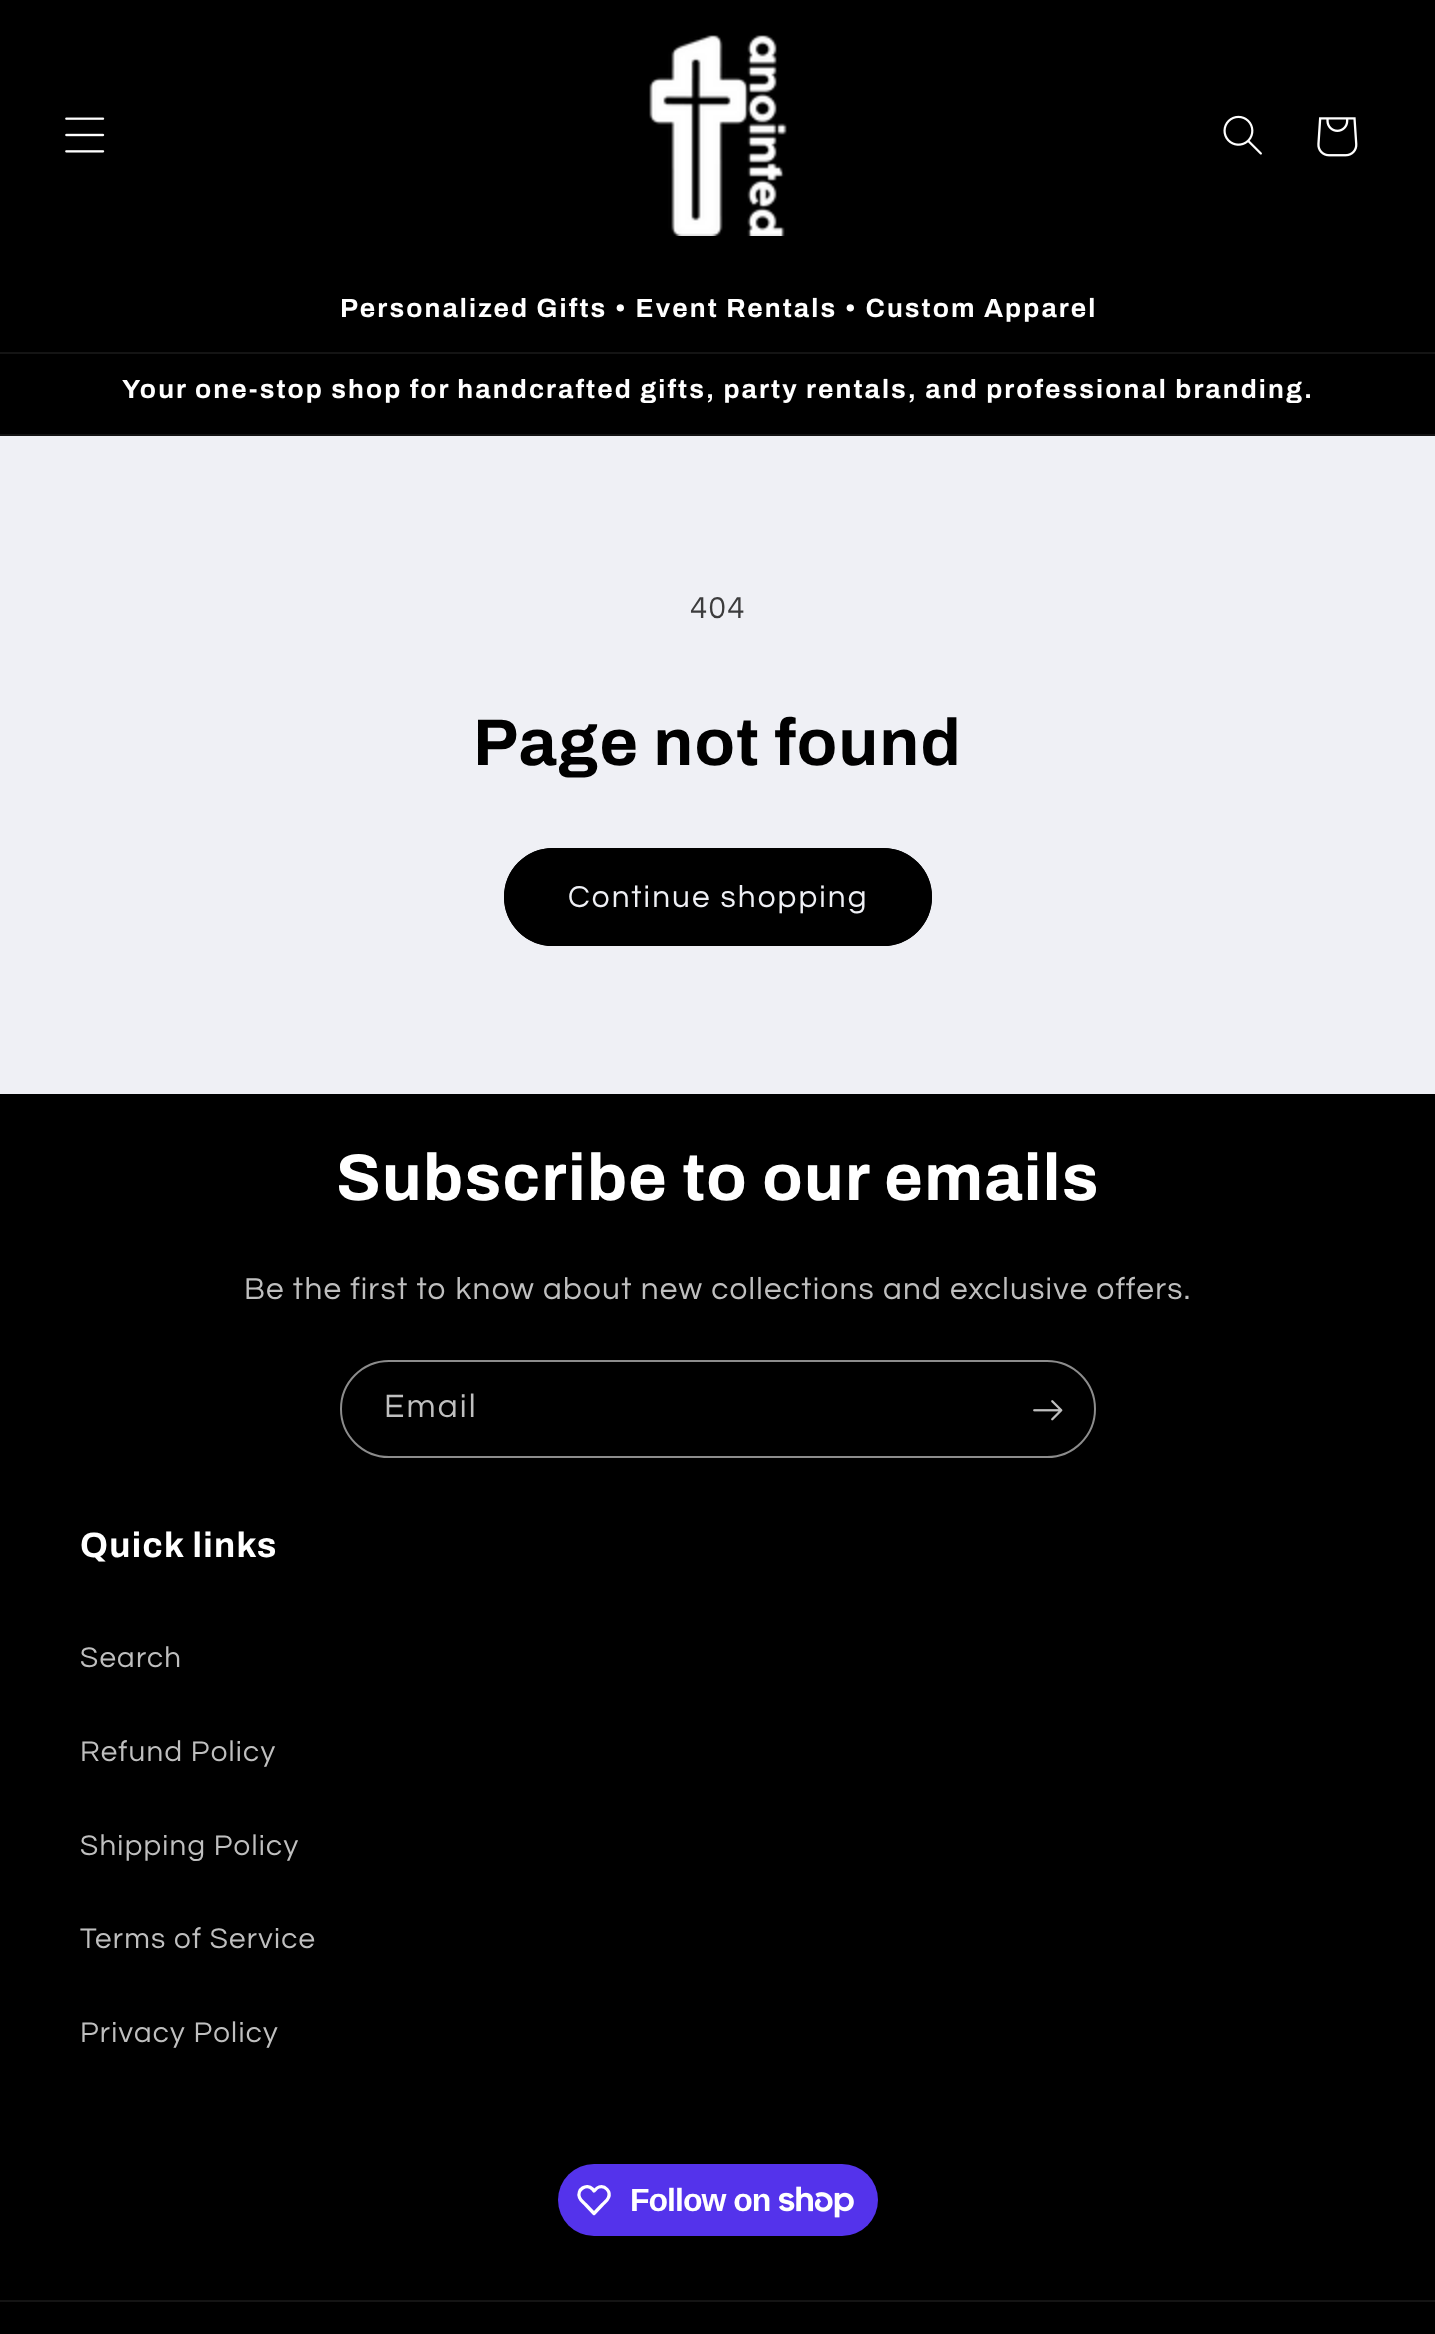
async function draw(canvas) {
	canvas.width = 1435;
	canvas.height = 2334;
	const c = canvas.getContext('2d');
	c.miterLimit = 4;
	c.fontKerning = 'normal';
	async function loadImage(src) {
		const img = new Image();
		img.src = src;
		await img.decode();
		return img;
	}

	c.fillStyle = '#eff0f5';
	c.fillRect(0, 0, 1435, 2334);
	c.fillStyle = '#000';
	c.fillRect(0, 0, 1435, 352);
	c.drawImage(await loadImage('img1.png'), 65, 117, 40, 36);
	c.drawImage(await loadImage('img2.png'), 649, 35, 138, 201);
	c.drawImage(await loadImage('img3.png'), 1223, 115, 39, 40);
	c.drawImage(await loadImage('img4.png'), 1317, 117, 41, 40);
	c.fillStyle = '#141414';
	c.fillRect(0, 352, 1435, 2);
	c.letterSpacing = '2.1px';
	c.font = 'bold 26.4px Archivo';
	c.fillStyle = '#fff';
	c.fillText('Personalized Gifts • Event Rentals • Custom Apparel', 340, 317);
	c.fillStyle = '#000';
	c.fillRect(0, 354, 1435, 80);
	c.fillStyle = '#141414';
	c.fillRect(0, 434, 1435, 2);
	c.fillStyle = '#fff';
	c.fillText('Your one-stop shop for handcrafted gifts, party rentals, and professional branding.', 122, 398);
	c.letterSpacing = '1.25px';
	c.font = '31.5px Questrial';
	c.fillStyle = '#3c3c3d';
	c.fillText('404', 690, 618);
	c.letterSpacing = '1.3px';
	c.font = 'bold 66px Archivo';
	c.fillStyle = '#000';
	c.fillText('Page not found', 473, 765);
	c.beginPath();
	c.roundRect(504, 848, 428, 98, 49);
	c.fill();
	c.beginPath();
	c.roundRect(505, 849, 426, 96, 48);
	c.strokeStyle = '#000';
	c.lineWidth = 2;
	c.stroke();
	c.letterSpacing = '2.1px';
	c.font = '31.5px Questrial';
	c.fillStyle = '#eff0f5';
	c.fillText('Continue shopping', 568, 907);
	c.fillStyle = '#000';
	c.fillRect(0, 1094, 1435, 1240);
	c.letterSpacing = '1.3px';
	c.font = 'bold 66px Archivo';
	c.fillStyle = '#fff';
	c.fillText('Subscribe to our emails', 336, 1200);
	c.letterSpacing = '1.25px';
	c.font = '31.5px Questrial';
	c.fillStyle = '#bfbfbf';
	c.fillText('Be the first to know about new collections and exclusive offers.', 244, 1299);
	c.beginPath();
	c.roundRect(341, 1361, 754, 96, 48);
	c.strokeStyle = '#8c8c8c';
	c.stroke();
	c.letterSpacing = '2.1px';
	c.font = '33.5px Questrial';
	c.fillText('Email', 384, 1417);
	c.drawImage(await loadImage('img5.png'), 1033, 1400, 30, 21);
	c.letterSpacing = '1.3px';
	c.font = 'bold 35.25px Archivo';
	c.fillStyle = '#fff';
	c.fillText('Quick links', 80, 1557);
	c.letterSpacing = '1.25px';
	c.font = '29.5px Questrial';
	c.fillStyle = '#bfbfbf';
	for (const [text, x, y] of [
		['Search', 80, 1667],
		['Refund Policy', 80, 1761],
		['Shipping Policy', 80, 1855],
		['Terms of Service', 80, 1948],
		['Privacy Policy', 80, 2042],
	]) {
		c.fillText(text, x, y);
	}
	c.fillStyle = '#5433eb';
	c.beginPath();
	c.roundRect(558, 2164, 320, 72, 36);
	c.fill();
	c.beginPath();
	c.moveTo(592.5, 2189);
	c.lineTo(594, 2191);
	c.bezierCurveTo(595.5, 2189.5, 597, 2187.5, 599, 2187);
	c.bezierCurveTo(605, 2185, 611, 2191.5, 608.5, 2197.5);
	c.bezierCurveTo(607.5, 2200.5, 604.5, 2202.5, 602.5, 2204.5);
	c.lineTo(594, 2213.5);
	c.lineTo(585.5, 2204.5);
	c.bezierCurveTo(583.5, 2202.5, 580.5, 2200.5, 579.5, 2197.5);
	c.bezierCurveTo(576.5, 2189.5, 586.5, 2183, 592.5, 2189);
	c.closePath();
	c.strokeStyle = '#fff';
	c.lineWidth = 3.3;
	c.lineJoin = 'round';
	c.stroke();
	c.letterSpacing = '-1px';
	c.font = 'bold 32px Liberation Sans';
	c.fillStyle = '#fff';
	c.fillText('Follow on', 630, 2211);
	c.drawImage(await loadImage('img6.png'), 779, 2186, 75, 32);
	c.fillStyle = '#141414';
	c.fillRect(0, 2300, 1435, 2);
}

draw(document.querySelector('canvas'));
